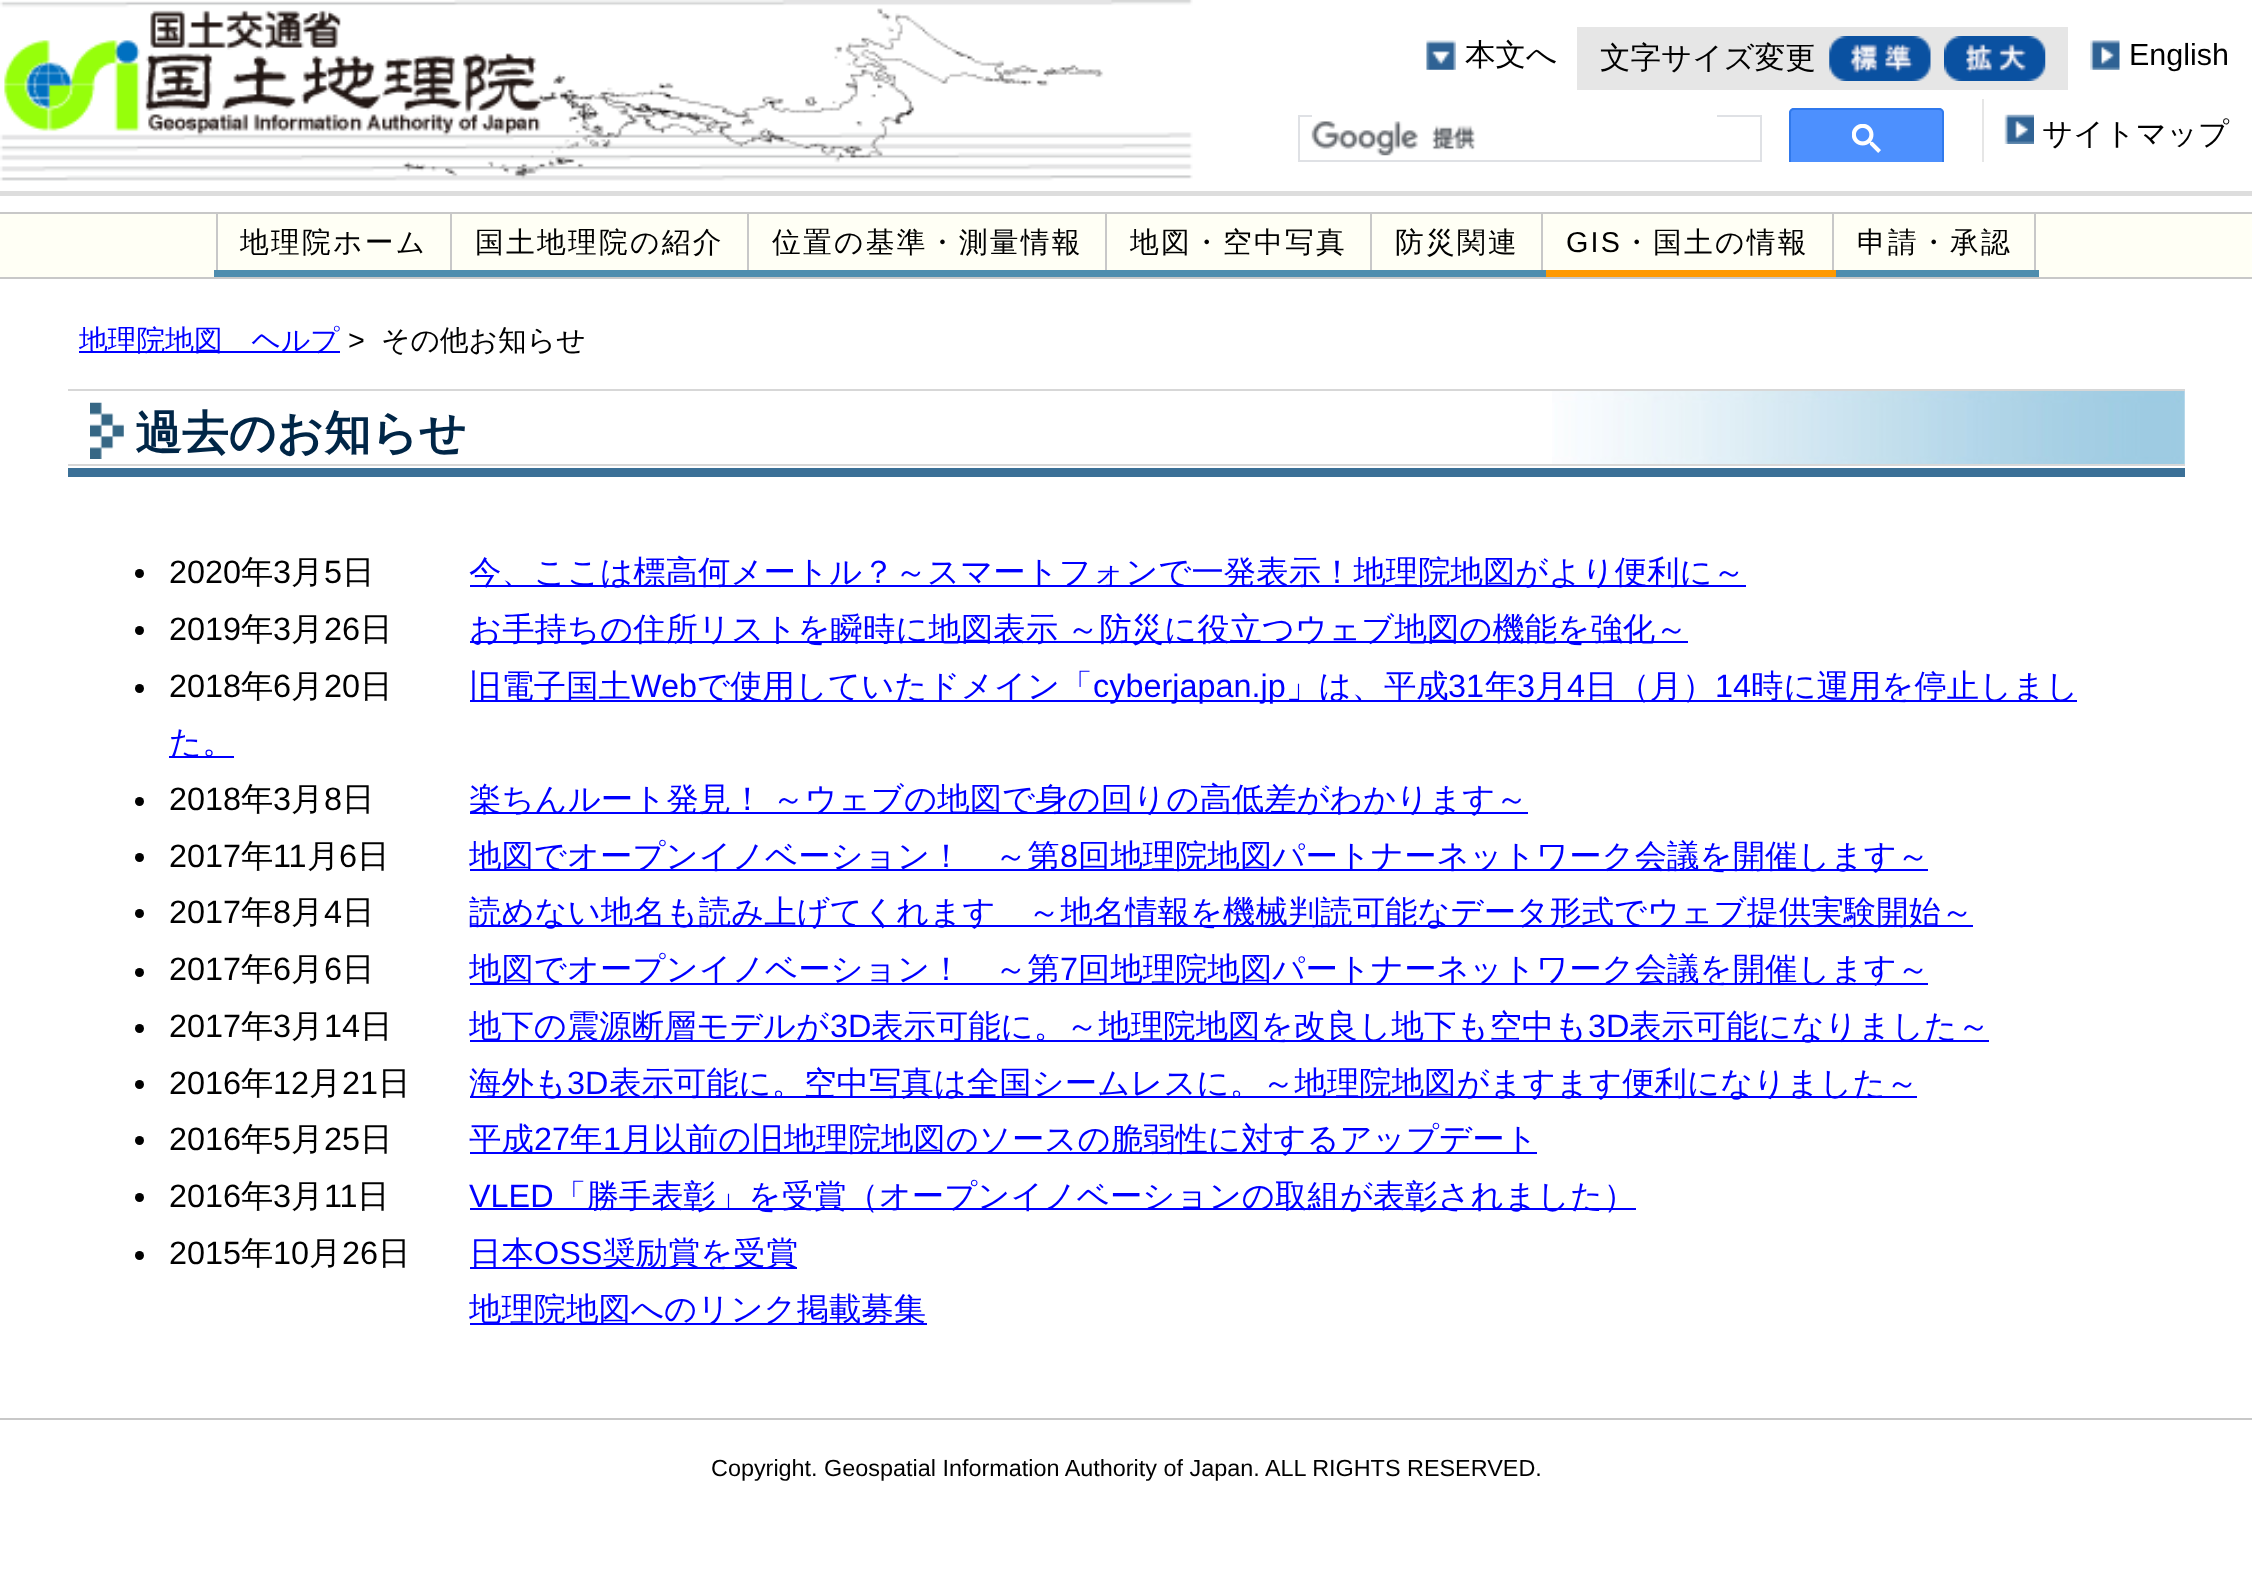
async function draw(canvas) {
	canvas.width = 2252;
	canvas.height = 1594;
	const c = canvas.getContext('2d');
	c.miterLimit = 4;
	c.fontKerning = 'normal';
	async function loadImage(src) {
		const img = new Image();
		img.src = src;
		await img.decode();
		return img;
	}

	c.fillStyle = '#fff';
	c.fillRect(0, 0, 2252, 1594);
	c.fillStyle = '#ddd';
	c.fillRect(0, 191, 2252, 5);
	c.drawImage(await loadImage('img1.png'), 0, 0, 1193, 181);
	c.drawImage(await loadImage('img2.png'), 1426, 40, 30, 30);
	c.font = '500 30.5px WenQuanYi Zen Hei';
	c.fillStyle = '#000';
	c.fillText('本文へ', 1465, 65);
	c.fillStyle = '#e6e6e6';
	c.fillRect(1577, 27, 491, 63);
	c.fillStyle = '#000';
	c.fillText('文字サイズ変更', 1600, 68);
	c.drawImage(await loadImage('img3.png'), 1829, 36, 102, 45);
	c.drawImage(await loadImage('img4.png'), 1944, 36, 102, 45);
	c.drawImage(await loadImage('img5.png'), 2090, 40, 30, 30);
	c.font = '30.5px Liberation Sans';
	c.fillText('English', 2129, 65);
	c.fillStyle = '#e6e6e6';
	c.fillRect(1982, 99, 2, 63);
	c.strokeStyle = '#dfe1e5';
	c.lineWidth = 2;
	c.strokeRect(1299, 116, 462, 45);
	c.fillStyle = '#fff';
	c.fillRect(1312, 115, 405, 2);
	c.drawImage(await loadImage('img6.png'), 1311, 121, 165, 35);
	c.fillStyle = '#4d90fe';
	c.beginPath();
	c.roundRect(1789, 108, 155, 54, [5, 5, 0, 0]);
	c.fill();
	c.save();
	c.beginPath();
	c.rect(1127, 90, 1125, 72);
	c.clip();
	c.beginPath();
	c.roundRect(1790, 109, 153, 59, 4);
	c.strokeStyle = '#3079ed';
	c.stroke();
	c.restore();
	c.drawImage(await loadImage('img7.png'), 1852, 124, 29, 29);
	c.drawImage(await loadImage('img8.png'), 2004, 114, 30, 30);
	c.font = '500 30.5px WenQuanYi Zen Hei';
	c.fillStyle = '#000';
	c.fillText('サイトマップ', 2042, 144);
	for (const [x, y, w, h, color] of [
		[0, 214, 2252, 63, '#fffff5'],
		[0, 212, 2252, 2, '#c8c8c8'],
		[0, 277, 2252, 2, '#c8c8c8'],
		[216, 214, 2, 61, '#c8c8c8'],
	]) {
		c.fillStyle = color;
		c.fillRect(x, y, w, h);
	}
	c.letterSpacing = '2.25px';
	c.font = '500 28.75px WenQuanYi Zen Hei';
	c.fillStyle = '#000';
	c.fillText('地理院ホーム', 240, 252);
	c.fillStyle = '#c8c8c8';
	c.fillRect(450, 214, 2, 61);
	c.fillStyle = '#000';
	c.fillText('国土地理院の紹介', 475, 252);
	c.fillStyle = '#c8c8c8';
	c.fillRect(747, 214, 2, 61);
	c.fillStyle = '#000';
	c.fillText('位置の基準・測量情報', 772, 252);
	c.fillStyle = '#c8c8c8';
	c.fillRect(1105, 214, 2, 61);
	c.fillStyle = '#000';
	c.fillText('地図・空中写真', 1130, 252);
	for (const [x, y, w, h, color] of [
		[1370, 214, 2, 61, '#c8c8c8'],
		[1541, 214, 2, 61, '#c8c8c8'],
		[1832, 214, 2, 61, '#c8c8c8'],
		[2034, 214, 2, 61, '#c8c8c8'],
		[1829, 270, 210, 7, '#4e8dae'],
		[1539, 270, 297, 7, '#f90'],
		[214, 270, 1332, 7, '#4e8dae'],
	]) {
		c.fillStyle = color;
		c.fillRect(x, y, w, h);
	}
	c.fillStyle = '#000';
	c.fillText('防災関連', 1395, 252);
	c.font = '28.75px Liberation Sans';
	c.fillText('GIS', 1566, 252);
	c.font = '500 28.75px WenQuanYi Zen Hei';
	c.fillText('・国土の情報', 1622, 252);
	c.fillText('申請・承認', 1857, 252);
	c.fillStyle = '#00f';
	c.fillRect(79, 351, 261, 2);
	c.letterSpacing = '0px';
	c.fillText('地理院地図　ヘルプ', 79, 350);
	c.font = '28.75px Liberation Sans';
	c.fillStyle = '#000';
	c.fillText('>', 348, 350);
	c.font = '500 28.75px WenQuanYi Zen Hei';
	c.fillText('その他お知らせ', 381, 350);
	c.fillStyle = '#3b7097';
	c.fillRect(68, 468, 2117, 9);
	c.drawImage(await loadImage('img9.png'), 1552, 391, 633, 73);
	c.fillStyle = '#d7d7d7';
	c.fillRect(68, 389, 2117, 2);
	c.fillRect(68, 464, 2117, 2);
	c.drawImage(await loadImage('img10.png'), 90, 402, 34, 57);
	c.font = 'bold 46.75px WenQuanYi Zen Hei';
	c.fillStyle = '#002647';
	c.fillText('過去のお知らせ', 135, 449);
	c.fillStyle = '#000';
	c.beginPath();
	c.arc(139.5, 573.5, 4.5, 0, 2 * Math.PI);
	c.fill();
	c.font = '32.4px Liberation Sans';
	c.fillText('2020', 169, 583);
	c.font = '500 32.4px WenQuanYi Zen Hei';
	c.fillText('年', 241, 583);
	c.font = '32.4px Liberation Sans';
	c.fillText('3', 273, 583);
	c.font = '500 32.4px WenQuanYi Zen Hei';
	c.fillText('月', 291, 583);
	c.font = '32.4px Liberation Sans';
	c.fillText('5', 324, 583);
	c.font = '500 32.4px WenQuanYi Zen Hei';
	c.fillText('日', 342, 583);
	c.fillStyle = '#00f';
	c.fillRect(470, 585, 1276, 2);
	c.fillText('今、ここは標高何メートル？～スマートフォンで一発表示！地理院地図がより便利に～', 469, 583);
	c.fillStyle = '#000';
	c.beginPath();
	c.arc(139.5, 630.5, 4.5, 0, 2 * Math.PI);
	c.fill();
	c.font = '32.4px Liberation Sans';
	c.fillText('2019', 169, 640);
	c.font = '500 32.4px WenQuanYi Zen Hei';
	c.fillText('年', 241, 640);
	c.font = '32.4px Liberation Sans';
	c.fillText('3', 273, 640);
	c.font = '500 32.4px WenQuanYi Zen Hei';
	c.fillText('月', 291, 640);
	c.font = '32.4px Liberation Sans';
	c.fillText('26', 324, 640);
	c.font = '500 32.4px WenQuanYi Zen Hei';
	c.fillText('日', 360, 640);
	c.fillStyle = '#00f';
	c.fillRect(470, 641, 1218, 2);
	c.wordSpacing = '-1px';
	c.fillText('お手持ちの住所リストを瞬時に地図表示 ～防災に役立つウェブ地図の機能を強化～', 469, 640);
	c.fillStyle = '#000';
	c.beginPath();
	c.arc(139.5, 688.5, 4.5, 0, 2 * Math.PI);
	c.fill();
	c.wordSpacing = '0px';
	c.font = '32.4px Liberation Sans';
	c.fillText('2018', 169, 697);
	c.font = '500 32.4px WenQuanYi Zen Hei';
	c.fillText('年', 241, 697);
	c.font = '32.4px Liberation Sans';
	c.fillText('6', 273, 697);
	c.font = '500 32.4px WenQuanYi Zen Hei';
	c.fillText('月', 291, 697);
	c.font = '32.4px Liberation Sans';
	c.fillText('20', 324, 697);
	c.font = '500 32.4px WenQuanYi Zen Hei';
	c.fillText('日', 360, 697);
	c.fillStyle = '#00f';
	c.fillRect(470, 700, 1607, 2);
	c.fillText('旧電子国土', 469, 697);
	c.font = '32.4px Liberation Sans';
	c.fillText('Web', 631, 697);
	c.font = '500 32.4px WenQuanYi Zen Hei';
	c.fillText('で使用していたドメイン「', 697, 697);
	c.font = '32.4px Liberation Sans';
	c.fillText('cyberjapan.jp', 1093, 697);
	c.font = '500 32.4px WenQuanYi Zen Hei';
	c.fillText('」は、平成', 1286, 697);
	c.font = '32.4px Liberation Sans';
	c.fillText('31', 1448, 697);
	c.font = '500 32.4px WenQuanYi Zen Hei';
	c.fillText('年', 1485, 697);
	c.font = '32.4px Liberation Sans';
	c.fillText('3', 1517, 697);
	c.font = '500 32.4px WenQuanYi Zen Hei';
	c.fillText('月', 1535, 697);
	c.font = '32.4px Liberation Sans';
	c.fillText('4', 1567, 697);
	c.font = '500 32.4px WenQuanYi Zen Hei';
	c.fillText('日（月）', 1585, 697);
	c.font = '32.4px Liberation Sans';
	c.fillText('14', 1715, 697);
	c.font = '500 32.4px WenQuanYi Zen Hei';
	c.fillText('時に運用を停止しまし', 1751, 697);
	c.fillRect(169, 756, 65, 2);
	c.fillText('た。', 169, 753);
	c.fillStyle = '#000';
	c.beginPath();
	c.arc(139.5, 801.5, 4.5, 0, 2 * Math.PI);
	c.fill();
	c.font = '32.4px Liberation Sans';
	c.fillText('2018', 169, 810);
	c.font = '500 32.4px WenQuanYi Zen Hei';
	c.fillText('年', 241, 810);
	c.font = '32.4px Liberation Sans';
	c.fillText('3', 273, 810);
	c.font = '500 32.4px WenQuanYi Zen Hei';
	c.fillText('月', 291, 810);
	c.font = '32.4px Liberation Sans';
	c.fillText('8', 324, 810);
	c.font = '500 32.4px WenQuanYi Zen Hei';
	c.fillText('日', 342, 810);
	c.fillStyle = '#00f';
	c.fillRect(470, 812, 1058, 2);
	c.wordSpacing = '-1px';
	c.fillText('楽ちんルート発見！ ～ウェブの地図で身の回りの高低差がわかります～', 469, 810);
	c.fillStyle = '#000';
	c.beginPath();
	c.arc(139.5, 857.5, 4.5, 0, 2 * Math.PI);
	c.fill();
	c.wordSpacing = '0px';
	c.font = '32.4px Liberation Sans';
	c.fillText('2017', 169, 867);
	c.font = '500 32.4px WenQuanYi Zen Hei';
	c.fillText('年', 241, 867);
	c.font = '32.4px Liberation Sans';
	c.fillText('11', 273, 867);
	c.font = '500 32.4px WenQuanYi Zen Hei';
	c.fillText('月', 307, 867);
	c.font = '32.4px Liberation Sans';
	c.fillText('6', 339, 867);
	c.font = '500 32.4px WenQuanYi Zen Hei';
	c.fillText('日', 357, 867);
	c.fillStyle = '#00f';
	c.fillRect(470, 869, 1458, 2);
	c.fillText('地図でオープンイノベーション！　～第', 469, 867);
	c.font = '32.4px Liberation Sans';
	c.fillText('8', 1060, 867);
	c.font = '500 32.4px WenQuanYi Zen Hei';
	c.fillText('回地理院地図パートナーネットワーク会議を開催します～', 1078, 867);
	c.fillStyle = '#000';
	c.beginPath();
	c.arc(139.5, 913.5, 4.5, 0, 2 * Math.PI);
	c.fill();
	c.font = '32.4px Liberation Sans';
	c.fillText('2017', 169, 923);
	c.font = '500 32.4px WenQuanYi Zen Hei';
	c.fillText('年', 241, 923);
	c.font = '32.4px Liberation Sans';
	c.fillText('8', 273, 923);
	c.font = '500 32.4px WenQuanYi Zen Hei';
	c.fillText('月', 291, 923);
	c.font = '32.4px Liberation Sans';
	c.fillText('4', 324, 923);
	c.font = '500 32.4px WenQuanYi Zen Hei';
	c.fillText('日', 342, 923);
	c.fillStyle = '#00f';
	c.fillRect(470, 925, 1503, 2);
	c.fillText('読めない地名も読み上げてくれます　～地名情報を機械判読可能なデータ形式でウェブ提供実験開始～', 469, 923);
	c.fillStyle = '#000';
	c.beginPath();
	c.arc(139.5, 972.5, 4.5, 0, 2 * Math.PI);
	c.fill();
	c.font = '32.4px Liberation Sans';
	c.fillText('2017', 169, 980);
	c.font = '500 32.4px WenQuanYi Zen Hei';
	c.fillText('年', 241, 980);
	c.font = '32.4px Liberation Sans';
	c.fillText('6', 273, 980);
	c.font = '500 32.4px WenQuanYi Zen Hei';
	c.fillText('月', 291, 980);
	c.font = '32.4px Liberation Sans';
	c.fillText('6', 324, 980);
	c.font = '500 32.4px WenQuanYi Zen Hei';
	c.fillText('日', 342, 980);
	c.fillStyle = '#00f';
	c.fillRect(470, 983, 1458, 2);
	c.fillText('地図でオープンイノベーション！　～第', 469, 980);
	c.font = '32.4px Liberation Sans';
	c.fillText('7', 1060, 980);
	c.font = '500 32.4px WenQuanYi Zen Hei';
	c.fillText('回地理院地図パートナーネットワーク会議を開催します～', 1078, 980);
	c.fillStyle = '#000';
	c.beginPath();
	c.arc(139.5, 1028.5, 4.5, 0, 2 * Math.PI);
	c.fill();
	c.font = '32.4px Liberation Sans';
	c.fillText('2017', 169, 1037);
	c.font = '500 32.4px WenQuanYi Zen Hei';
	c.fillText('年', 241, 1037);
	c.font = '32.4px Liberation Sans';
	c.fillText('3', 273, 1037);
	c.font = '500 32.4px WenQuanYi Zen Hei';
	c.fillText('月', 291, 1037);
	c.font = '32.4px Liberation Sans';
	c.fillText('14', 324, 1037);
	c.font = '500 32.4px WenQuanYi Zen Hei';
	c.fillText('日', 360, 1037);
	c.fillStyle = '#00f';
	c.fillRect(470, 1040, 1519, 2);
	c.fillText('地下の震源断層モデルが', 469, 1037);
	c.font = '32.4px Liberation Sans';
	c.fillText('3D', 830, 1037);
	c.font = '500 32.4px WenQuanYi Zen Hei';
	c.fillText('表示可能に。～地理院地図を改良し地下も空中も', 871, 1037);
	c.font = '32.4px Liberation Sans';
	c.fillText('3D', 1588, 1037);
	c.font = '500 32.4px WenQuanYi Zen Hei';
	c.fillText('表示可能になりました～', 1629, 1037);
	c.fillStyle = '#000';
	c.beginPath();
	c.arc(139.5, 1084.5, 4.5, 0, 2 * Math.PI);
	c.fill();
	c.font = '32.4px Liberation Sans';
	c.fillText('2016', 169, 1094);
	c.font = '500 32.4px WenQuanYi Zen Hei';
	c.fillText('年', 241, 1094);
	c.font = '32.4px Liberation Sans';
	c.fillText('12', 273, 1094);
	c.font = '500 32.4px WenQuanYi Zen Hei';
	c.fillText('月', 309, 1094);
	c.font = '32.4px Liberation Sans';
	c.fillText('21', 342, 1094);
	c.font = '500 32.4px WenQuanYi Zen Hei';
	c.fillText('日', 378, 1094);
	c.fillStyle = '#00f';
	c.fillRect(470, 1096, 1447, 2);
	c.fillText('海外も', 469, 1094);
	c.font = '32.4px Liberation Sans';
	c.fillText('3D', 567, 1094);
	c.font = '500 32.4px WenQuanYi Zen Hei';
	c.fillText('表示可能に。空中写真は全国シームレスに。～地理院地図がますます便利になりました～', 609, 1094);
	c.fillStyle = '#000';
	c.beginPath();
	c.arc(139.5, 1140.5, 4.5, 0, 2 * Math.PI);
	c.fill();
	c.font = '32.4px Liberation Sans';
	c.fillText('2016', 169, 1150);
	c.font = '500 32.4px WenQuanYi Zen Hei';
	c.fillText('年', 241, 1150);
	c.font = '32.4px Liberation Sans';
	c.fillText('5', 273, 1150);
	c.font = '500 32.4px WenQuanYi Zen Hei';
	c.fillText('月', 291, 1150);
	c.font = '32.4px Liberation Sans';
	c.fillText('25', 324, 1150);
	c.font = '500 32.4px WenQuanYi Zen Hei';
	c.fillText('日', 360, 1150);
	c.fillStyle = '#00f';
	c.fillRect(470, 1152, 1067, 2);
	c.fillText('平成', 469, 1150);
	c.font = '32.4px Liberation Sans';
	c.fillText('27', 534, 1150);
	c.font = '500 32.4px WenQuanYi Zen Hei';
	c.fillText('年', 570, 1150);
	c.font = '32.4px Liberation Sans';
	c.fillText('1', 603, 1150);
	c.font = '500 32.4px WenQuanYi Zen Hei';
	c.fillText('月以前の旧地理院地図のソースの脆弱性に対するアップデート', 621, 1150);
	c.fillStyle = '#000';
	c.beginPath();
	c.arc(139.5, 1197.5, 4.5, 0, 2 * Math.PI);
	c.fill();
	c.font = '32.4px Liberation Sans';
	c.fillText('2016', 169, 1207);
	c.font = '500 32.4px WenQuanYi Zen Hei';
	c.fillText('年', 241, 1207);
	c.font = '32.4px Liberation Sans';
	c.fillText('3', 273, 1207);
	c.font = '500 32.4px WenQuanYi Zen Hei';
	c.fillText('月', 291, 1207);
	c.font = '32.4px Liberation Sans';
	c.fillText('11', 324, 1207);
	c.font = '500 32.4px WenQuanYi Zen Hei';
	c.fillText('日', 357, 1207);
	c.font = '32.4px Liberation Sans';
	c.fillStyle = '#00f';
	c.fillText('VLED', 469, 1207);
	c.fillRect(470, 1208, 1166, 2);
	c.font = '500 32.4px WenQuanYi Zen Hei';
	c.fillText('「勝手表彰」を受賞（オープンイノベーションの取組が表彰されました）', 554, 1207);
	c.fillStyle = '#000';
	c.beginPath();
	c.arc(139.5, 1255.5, 4.5, 0, 2 * Math.PI);
	c.fill();
	c.font = '32.4px Liberation Sans';
	c.fillText('2015', 169, 1264);
	c.font = '500 32.4px WenQuanYi Zen Hei';
	c.fillText('年', 241, 1264);
	c.font = '32.4px Liberation Sans';
	c.fillText('10', 273, 1264);
	c.font = '500 32.4px WenQuanYi Zen Hei';
	c.fillText('月', 309, 1264);
	c.font = '32.4px Liberation Sans';
	c.fillText('26', 342, 1264);
	c.font = '500 32.4px WenQuanYi Zen Hei';
	c.fillText('日', 378, 1264);
	c.fillStyle = '#00f';
	c.fillRect(470, 1267, 327, 2);
	c.fillText('日本', 469, 1264);
	c.font = '32.4px Liberation Sans';
	c.fillText('OSS', 534, 1264);
	c.font = '500 32.4px WenQuanYi Zen Hei';
	c.fillText('奨励賞を受賞', 603, 1264);
	c.fillRect(470, 1323, 457, 2);
	c.fillText('地理院地図へのリンク掲載募集', 469, 1320);
	c.fillStyle = '#c8c8c8';
	c.fillRect(0, 1418, 2252, 2);
	c.font = '23.4px Liberation Sans';
	c.fillStyle = '#000';
	c.fillText('Copyright. Geospatial Information Authority of Japan. ALL RIGHTS RESERVED.', 711, 1476);
}

draw(document.querySelector('canvas'));
